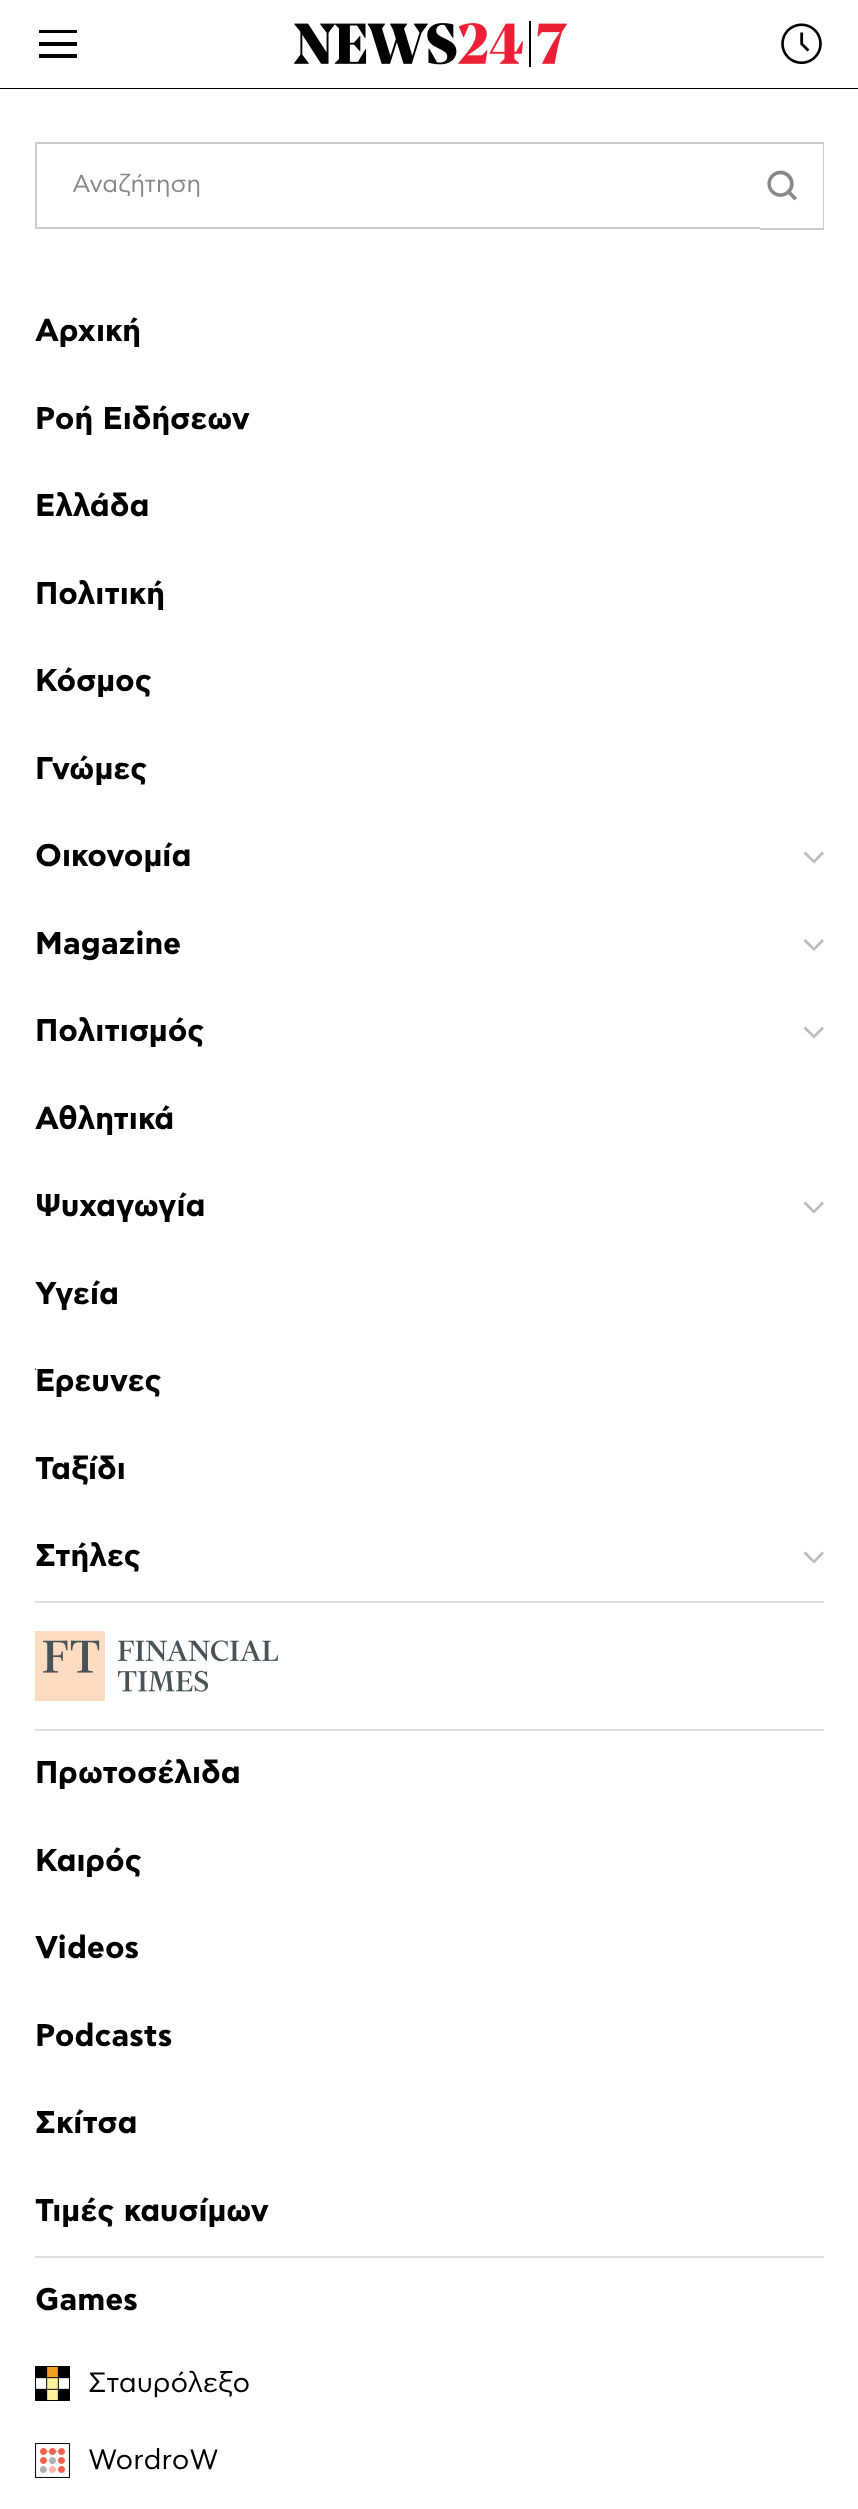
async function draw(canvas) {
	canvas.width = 858;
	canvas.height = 2509;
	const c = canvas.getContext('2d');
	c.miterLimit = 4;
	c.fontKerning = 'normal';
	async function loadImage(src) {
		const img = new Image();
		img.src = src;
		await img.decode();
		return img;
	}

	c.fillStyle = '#fff';
	c.fillRect(0, 0, 858, 2509);
	for (const [x, y, w, h, color] of [
		[0, 88, 858, 1, '#000'],
		[39, 30, 38, 3, '#000'],
		[39, 42, 38, 4, '#000'],
		[39, 54, 38, 4, '#000'],
	]) {
		c.fillStyle = color;
		c.fillRect(x, y, w, h);
	}
	c.drawImage(await loadImage('img1.png'), 294, 21, 273, 46);
	c.drawImage(await loadImage('img2.png'), 781, 23, 41, 42);
	c.strokeStyle = '#ccc';
	c.lineWidth = 2;
	c.strokeRect(36, 143, 787, 85);
	c.font = '24.5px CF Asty';
	c.fillStyle = '#888';
	c.fillText('Αναζήτηση', 72, 192);
	c.fillStyle = '#fff';
	c.fillRect(760, 144, 63, 84);
	c.fillStyle = '#ccc';
	c.fillRect(760, 229, 64, 1);
	c.drawImage(await loadImage('img3.png'), 767, 170, 30, 31);
	c.fillStyle = '#ddd';
	c.fillRect(35, 1729, 789, 2);
	c.font = 'bold 31.5px CF Asty';
	c.fillStyle = '#000';
	for (const [text, x, y] of [
		['Αρχική', 35, 341],
		['Ροή Ειδήσεων', 35, 429],
		['Ελλάδα', 35, 516],
		['Πολιτική', 35, 604],
		['Κόσμος', 35, 691],
		['Γνώμες', 35, 779],
		['Οικονομία', 35, 866],
	]) {
		c.fillText(text, x, y);
	}
	c.fillStyle = '#bbb';
	c.beginPath();
	c.moveTo(803.5, 853.5);
	c.lineTo(805.5, 851.5);
	c.lineTo(814, 860);
	c.lineTo(822, 851.5);
	c.lineTo(824, 853.5);
	c.lineTo(814, 863.5);
	c.closePath();
	c.fill();
	c.fillStyle = '#000';
	c.fillText('Magazine', 35, 954);
	c.fillStyle = '#bbb';
	c.beginPath();
	c.moveTo(803.5, 941);
	c.lineTo(805.5, 939);
	c.lineTo(814, 947.5);
	c.lineTo(822, 939);
	c.lineTo(824, 941);
	c.lineTo(814, 951);
	c.closePath();
	c.fill();
	c.fillStyle = '#000';
	c.fillText('Πολιτισμός', 35, 1041);
	c.fillStyle = '#bbb';
	c.beginPath();
	c.moveTo(803.5, 1028.5);
	c.lineTo(805.5, 1026.5);
	c.lineTo(814, 1035);
	c.lineTo(822, 1026.5);
	c.lineTo(824, 1028.5);
	c.lineTo(814, 1038.5);
	c.closePath();
	c.fill();
	c.fillStyle = '#000';
	c.fillText('Αθλητικά', 35, 1129);
	c.fillText('Ψυχαγωγία', 35, 1216);
	c.fillStyle = '#bbb';
	c.beginPath();
	c.moveTo(803.5, 1203.5);
	c.lineTo(805.5, 1201.5);
	c.lineTo(814, 1210);
	c.lineTo(822, 1201.5);
	c.lineTo(824, 1203.5);
	c.lineTo(814, 1213.5);
	c.closePath();
	c.fill();
	c.fillStyle = '#000';
	c.fillText('Υγεία', 35, 1304);
	c.save();
	c.beginPath();
	c.rect(35, 142, 789, 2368);
	c.clip();
	c.fillText('Έρευνες', 35, 1391);
	c.restore();
	c.fillText('Ταξίδι', 35, 1479);
	c.fillText('Στήλες', 35, 1566);
	c.fillStyle = '#bbb';
	c.beginPath();
	c.moveTo(803.5, 1553.5);
	c.lineTo(805.5, 1551.5);
	c.lineTo(814, 1560);
	c.lineTo(822, 1551.5);
	c.lineTo(824, 1553.5);
	c.lineTo(814, 1563.5);
	c.closePath();
	c.fill();
	c.fillStyle = '#ddd';
	c.fillRect(35, 1601, 789, 2);
	c.drawImage(await loadImage('img4.png'), 35, 1631, 243, 70);
	c.fillRect(35, 2256, 789, 2);
	c.fillStyle = '#000';
	for (const [text, x, y] of [
		['Πρωτοσέλιδα', 35, 1783],
		['Καιρός', 35, 1871],
		['Videos', 35, 1958],
		['Podcasts', 35, 2046],
		['Σκίτσα', 35, 2133],
		['Τιμές καυσίμων', 35, 2221],
		['Games', 35, 2310],
	]) {
		c.fillText(text, x, y);
	}
	c.drawImage(await loadImage('img5.png'), 35, 2366, 35, 35);
	c.font = '28px CF Asty';
	c.fillText('Σταυρόλεξο', 88, 2392);
	c.drawImage(await loadImage('img6.png'), 35, 2443, 35, 35);
	c.fillText('WordroW', 88, 2469);
}

draw(document.querySelector('canvas'));
